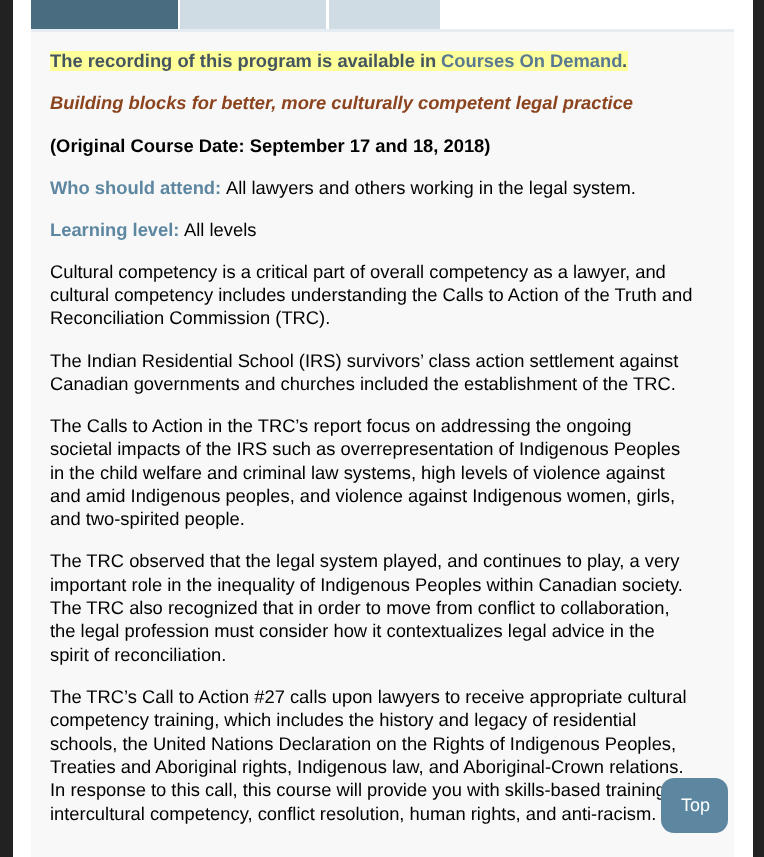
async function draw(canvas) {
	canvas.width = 764;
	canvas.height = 857;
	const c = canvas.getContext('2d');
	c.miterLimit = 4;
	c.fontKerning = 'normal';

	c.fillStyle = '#222';
	c.fillRect(0, 0, 764, 857);
	for (const [x, y, w, h, color] of [
		[13, 0, 740, 857, '#fff'],
		[31, 0, 147, 29, '#4a6c81'],
		[180, 0, 146, 29, '#cfdce3'],
		[329, 0, 111, 29, '#cfdce3'],
		[31, 32, 703, 825, '#f8f8f8'],
		[31, 29, 703, 3, '#e5ecf2'],
		[50, 51, 578, 20, '#ff9'],
	]) {
		c.fillStyle = color;
		c.fillRect(x, y, w, h);
	}
	c.font = 'bold 18.35px Liberation Sans';
	c.fillStyle = '#455560';
	c.fillText('The recording of this program is available in', 50, 67);
	c.fillStyle = '#597992';
	c.fillText('Courses On Demand', 441, 67);
	c.fillStyle = '#455560';
	c.fillText('.', 622, 67);
	c.font = 'italic bold 18.35px Liberation Sans';
	c.fillStyle = '#8c441f';
	c.fillText('Building blocks for better, more culturally competent legal practice', 50, 109);
	c.font = 'bold 18.35px Liberation Sans';
	c.fillStyle = '#000';
	c.fillText('(Original Course Date: September 17 and 18, 2018)', 50, 152);
	c.fillStyle = '#5d87a1';
	c.fillText('Who should attend:', 50, 194);
	c.font = '18.35px Liberation Sans';
	c.fillStyle = '#000';
	c.fillText('All lawyers and others working in the legal system.', 226, 194);
	c.font = 'bold 18.35px Liberation Sans';
	c.fillStyle = '#5d87a1';
	c.fillText('Learning level:', 50, 236);
	c.font = '18.35px Liberation Sans';
	c.fillStyle = '#000';
	for (const [text, x, y] of [
		['All levels', 184, 236],
		['Cultural competency is a critical part of overall competency as a lawyer, and', 50, 278],
		['cultural competency includes understanding the Calls to Action of the Truth and', 50, 301],
		['Reconciliation Commission (TRC).', 50, 324],
		['The Indian Residential School (IRS) survivors’ class action settlement against', 50, 367],
		['Canadian governments and churches included the establishment of the TRC.', 50, 390],
		['The Calls to Action in the TRC’s report focus on addressing the ongoing', 50, 432],
		['societal impacts of the IRS such as overrepresentation of Indigenous Peoples', 50, 455],
		['in the child welfare and criminal law systems, high levels of violence against', 50, 479],
		['and amid Indigenous peoples, and violence against Indigenous women, girls,', 50, 502],
		['and two-spirited people.', 50, 525],
		['The TRC observed that the legal system played, and continues to play, a very', 50, 567],
		['important role in the inequality of Indigenous Peoples within Canadian society.', 50, 591],
		['The TRC also recognized that in order to move from conflict to collaboration,', 50, 614],
		['the legal profession must consider how it contextualizes legal advice in the', 50, 637],
		['spirit of reconciliation.', 50, 661],
		['The TRC’s Call to Action #27 calls upon lawyers to receive appropriate cultural', 50, 703],
		['competency training, which includes the history and legacy of residential', 50, 726],
		['schools, the United Nations Declaration on the Rights of Indigenous Peoples,', 50, 750],
		['Treaties and Aboriginal rights, Indigenous law, and Aboriginal-Crown relations.', 50, 773],
		['In response to this call, this course will provide you with skills-based training', 50, 796],
		['intercultural competency, conflict resolution, human rights, and anti-racism.', 50, 820],
	]) {
		c.fillText(text, x, y);
	}
	c.fillStyle = '#5d87a1';
	c.beginPath();
	c.roundRect(661, 778, 67, 55, 13);
	c.fill();
	c.font = '18px Liberation Sans';
	c.fillStyle = '#fff';
	c.fillText('Top', 681, 811);
}

draw(document.querySelector('canvas'));
